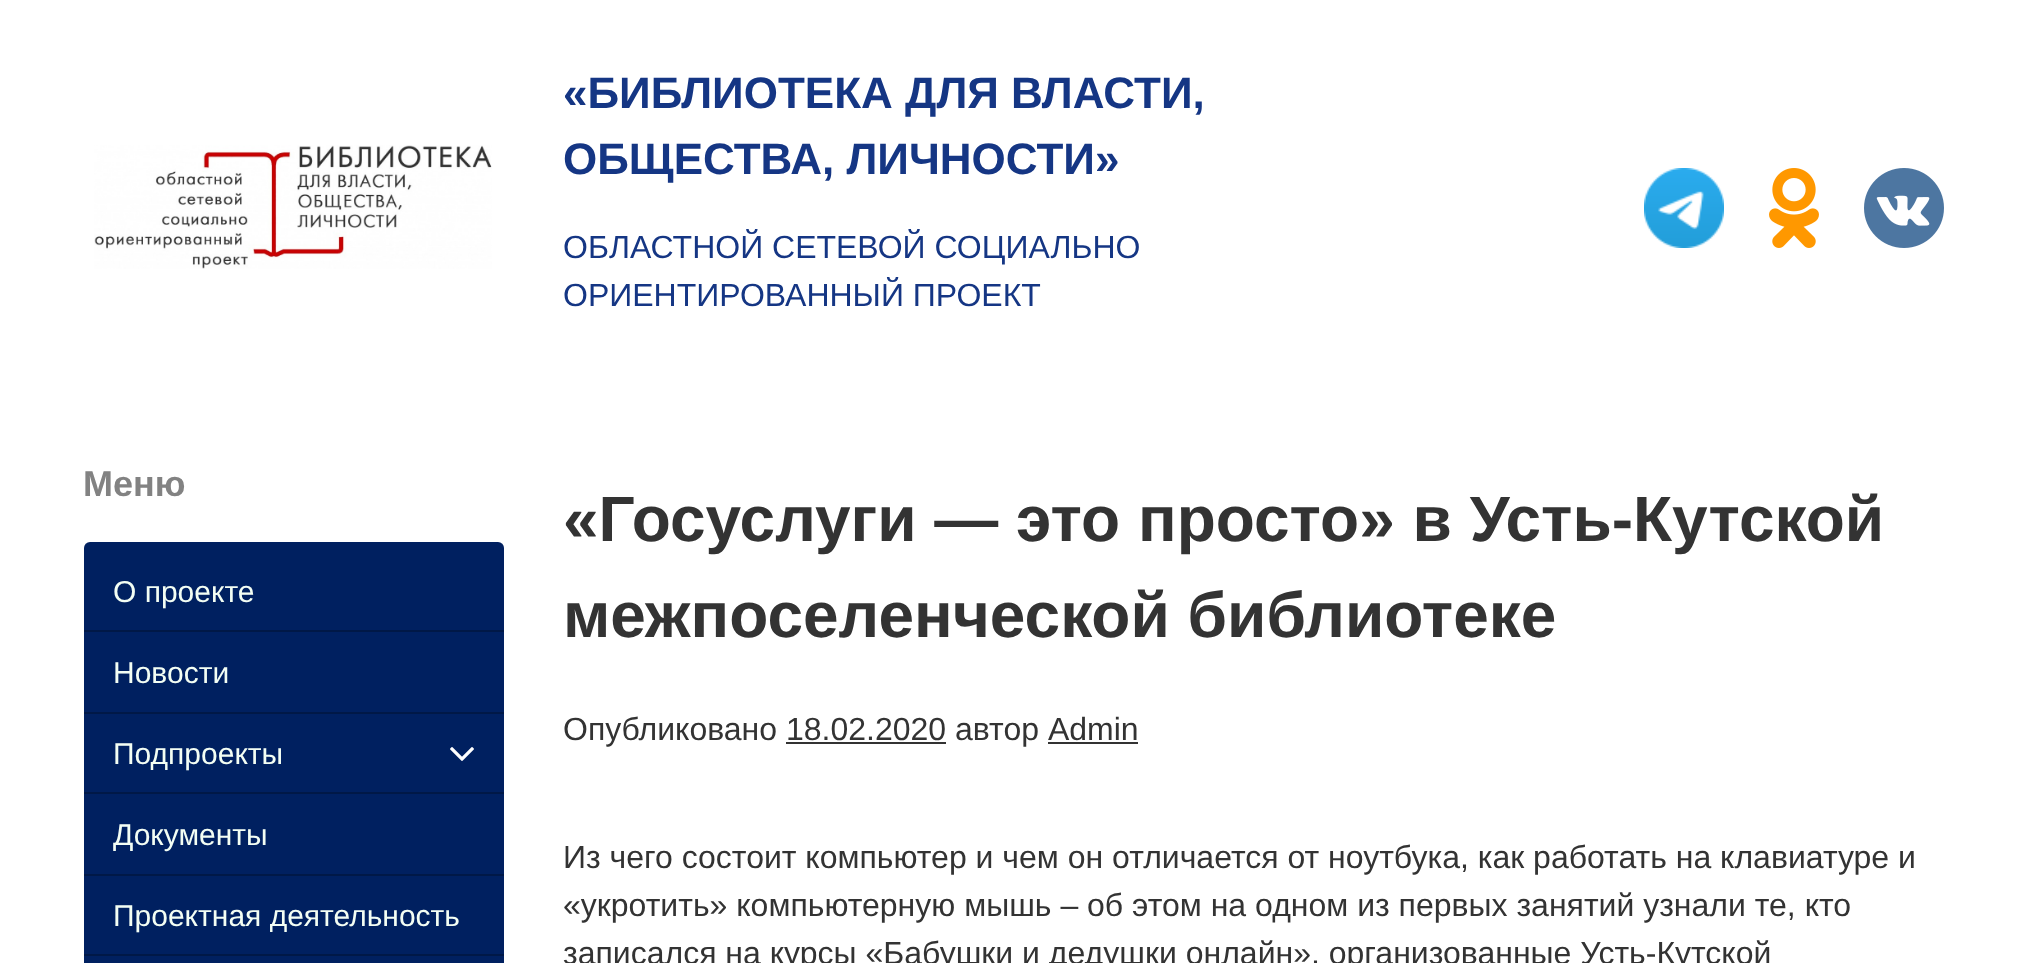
async function draw(canvas) {
	canvas.width = 2025;
	canvas.height = 963;
	const c = canvas.getContext('2d');
	c.miterLimit = 4;
	c.fontKerning = 'normal';
	async function loadImage(src) {
		const img = new Image();
		img.src = src;
		await img.decode();
		return img;
	}

	c.fillStyle = '#fff';
	c.fillRect(0, 0, 2025, 963);
	c.drawImage(await loadImage('img1.png'), 94, 145, 398, 124);
	c.font = 'bold 44px Liberation Sans';
	c.fillStyle = '#153684';
	c.fillText('«БИБЛИОТЕКА ДЛЯ ВЛАСТИ,', 563, 108);
	c.fillText('ОБЩЕСТВА, ЛИЧНОСТИ»', 563, 174);
	c.font = '32px Liberation Sans';
	c.fillText('ОБЛАСТНОЙ СЕТЕВОЙ СОЦИАЛЬНО', 563, 258);
	c.fillText('ОРИЕНТИРОВАННЫЙ ПРОЕКТ', 563, 306);
	c.drawImage(await loadImage('img2.png'), 1644, 168, 80, 80);
	c.drawImage(await loadImage('img3.png'), 1769, 168, 50, 80);
	c.drawImage(await loadImage('img4.png'), 1864, 168, 80, 80);
	c.font = 'bold 36px Liberation Sans';
	c.fillStyle = '#828282';
	c.fillText('Меню', 83, 496);
	c.fillStyle = '#002060';
	c.beginPath();
	c.roundRect(84, 542, 420, 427, 6);
	c.fill();
	c.fillStyle = '#001847';
	c.fillRect(84, 630, 420, 2);
	c.font = '30px Liberation Sans';
	c.fillStyle = '#f3fef4';
	c.fillText('О проекте', 113, 602);
	c.fillStyle = '#001847';
	c.fillRect(84, 712, 420, 2);
	c.fillStyle = '#f3fef4';
	c.fillText('Новости', 113, 683);
	c.fillStyle = '#001847';
	c.fillRect(84, 792, 420, 2);
	c.fillStyle = '#f3fef4';
	c.fillText('Подпроекты', 113, 764);
	c.drawImage(await loadImage('img5.png'), 450, 747, 24, 14);
	c.fillStyle = '#001847';
	c.fillRect(84, 874, 420, 2);
	c.fillStyle = '#f3fef4';
	c.fillText('Документы', 113, 845);
	c.fillStyle = '#001847';
	c.fillRect(84, 954, 420, 2);
	c.fillStyle = '#f3fef4';
	c.fillText('Проектная деятельность', 113, 926);
	c.font = 'bold 64px Liberation Sans';
	c.fillStyle = '#333';
	c.fillText('«Госуслуги — это просто» в Усть-Кутской', 563, 541);
	c.fillText('межпоселенческой библиотеке', 563, 637);
	c.font = '32px Liberation Sans';
	c.fillText('Опубликовано 18.02.2020 автор Admin', 563, 740);
	c.fillRect(786, 742, 160, 2);
	c.fillRect(1048, 742, 90, 2);
	for (const [text, x, y] of [
		['Из чего состоит компьютер и чем он отличается от ноутбука, как работать на клавиатуре и', 563, 868],
		['«укротить» компьютерную мышь – об этом на одном из первых занятий узнали те, кто', 563, 916],
		['записался на курсы «Бабушки и дедушки онлайн», организованные Усть-Кутской', 563, 964],
	]) {
		c.fillText(text, x, y);
	}
}

draw(document.querySelector('canvas'));
